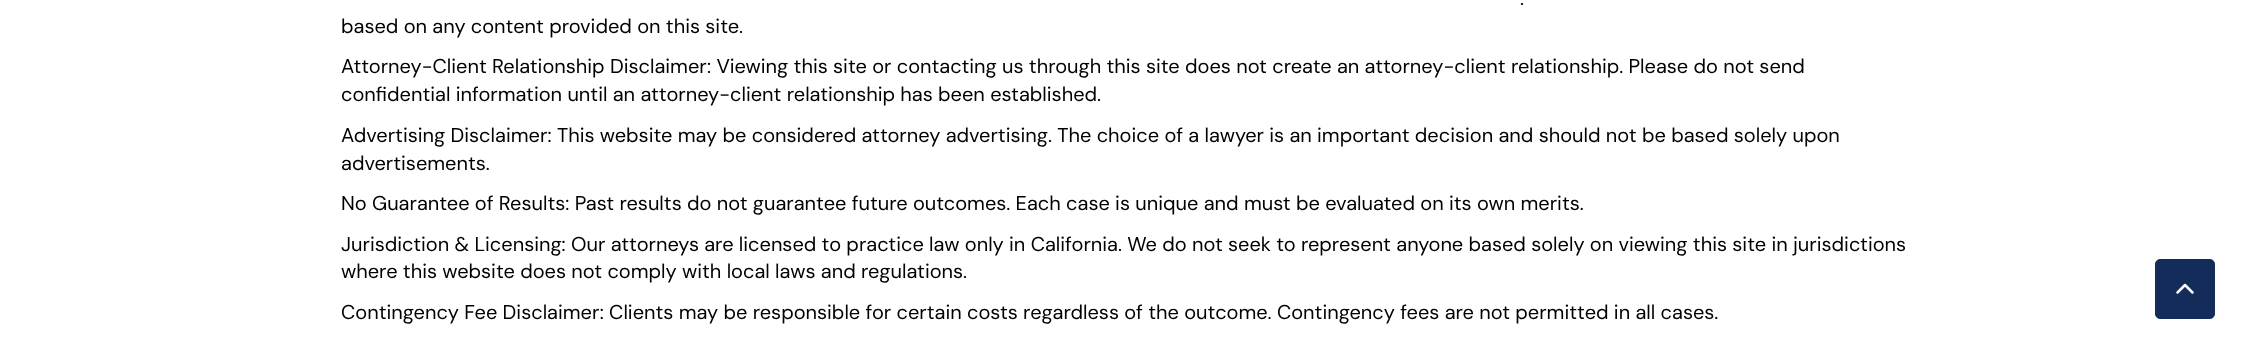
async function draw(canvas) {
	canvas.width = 2254;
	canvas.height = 358;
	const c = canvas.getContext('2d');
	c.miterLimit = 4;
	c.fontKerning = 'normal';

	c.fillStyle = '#fff';
	c.fillRect(0, 0, 2254, 358);
	c.font = '20px DM Sans';
	c.fillStyle = '#000';
	for (const [text, x, y] of [
		['.', 1520, 5],
		['based on any content provided on this site.', 341, 33],
		['Attorney-Client Relationship Disclaimer: Viewing this site or contacting us through this site does not create an attorney-client relationship. Please do not send', 341, 73],
		['confidential information until an attorney-client relationship has been established.', 341, 101],
		['Advertising Disclaimer: This website may be considered attorney advertising. The choice of a lawyer is an important decision and should not be based solely upon', 341, 142],
		['advertisements.', 341, 170],
		['No Guarantee of Results: Past results do not guarantee future outcomes. Each case is unique and must be evaluated on its own merits.', 341, 210],
		['Jurisdiction & Licensing: Our attorneys are licensed to practice law only in California. We do not seek to represent anyone based solely on viewing this site in jurisdictions', 341, 251],
		['where this website does not comply with local laws and regulations.', 341, 278],
		['Contingency Fee Disclaimer: Clients may be responsible for certain costs regardless of the outcome. Contingency fees are not permitted in all cases.', 341, 319],
	]) {
		c.fillText(text, x, y);
	}
	c.fillStyle = '#132c5a';
	c.beginPath();
	c.roundRect(2155.5, 259.5, 59, 59, 4.5);
	c.fill();
	c.strokeStyle = '#132c5a';
	c.stroke();
	c.beginPath();
	c.moveTo(2192.5, 292.5);
	c.lineTo(2185, 285);
	c.lineTo(2177.5, 292.5);
	c.strokeStyle = '#fff';
	c.lineWidth = 2.5;
	c.lineCap = 'round';
	c.lineJoin = 'round';
	c.stroke();
}

draw(document.querySelector('canvas'));
